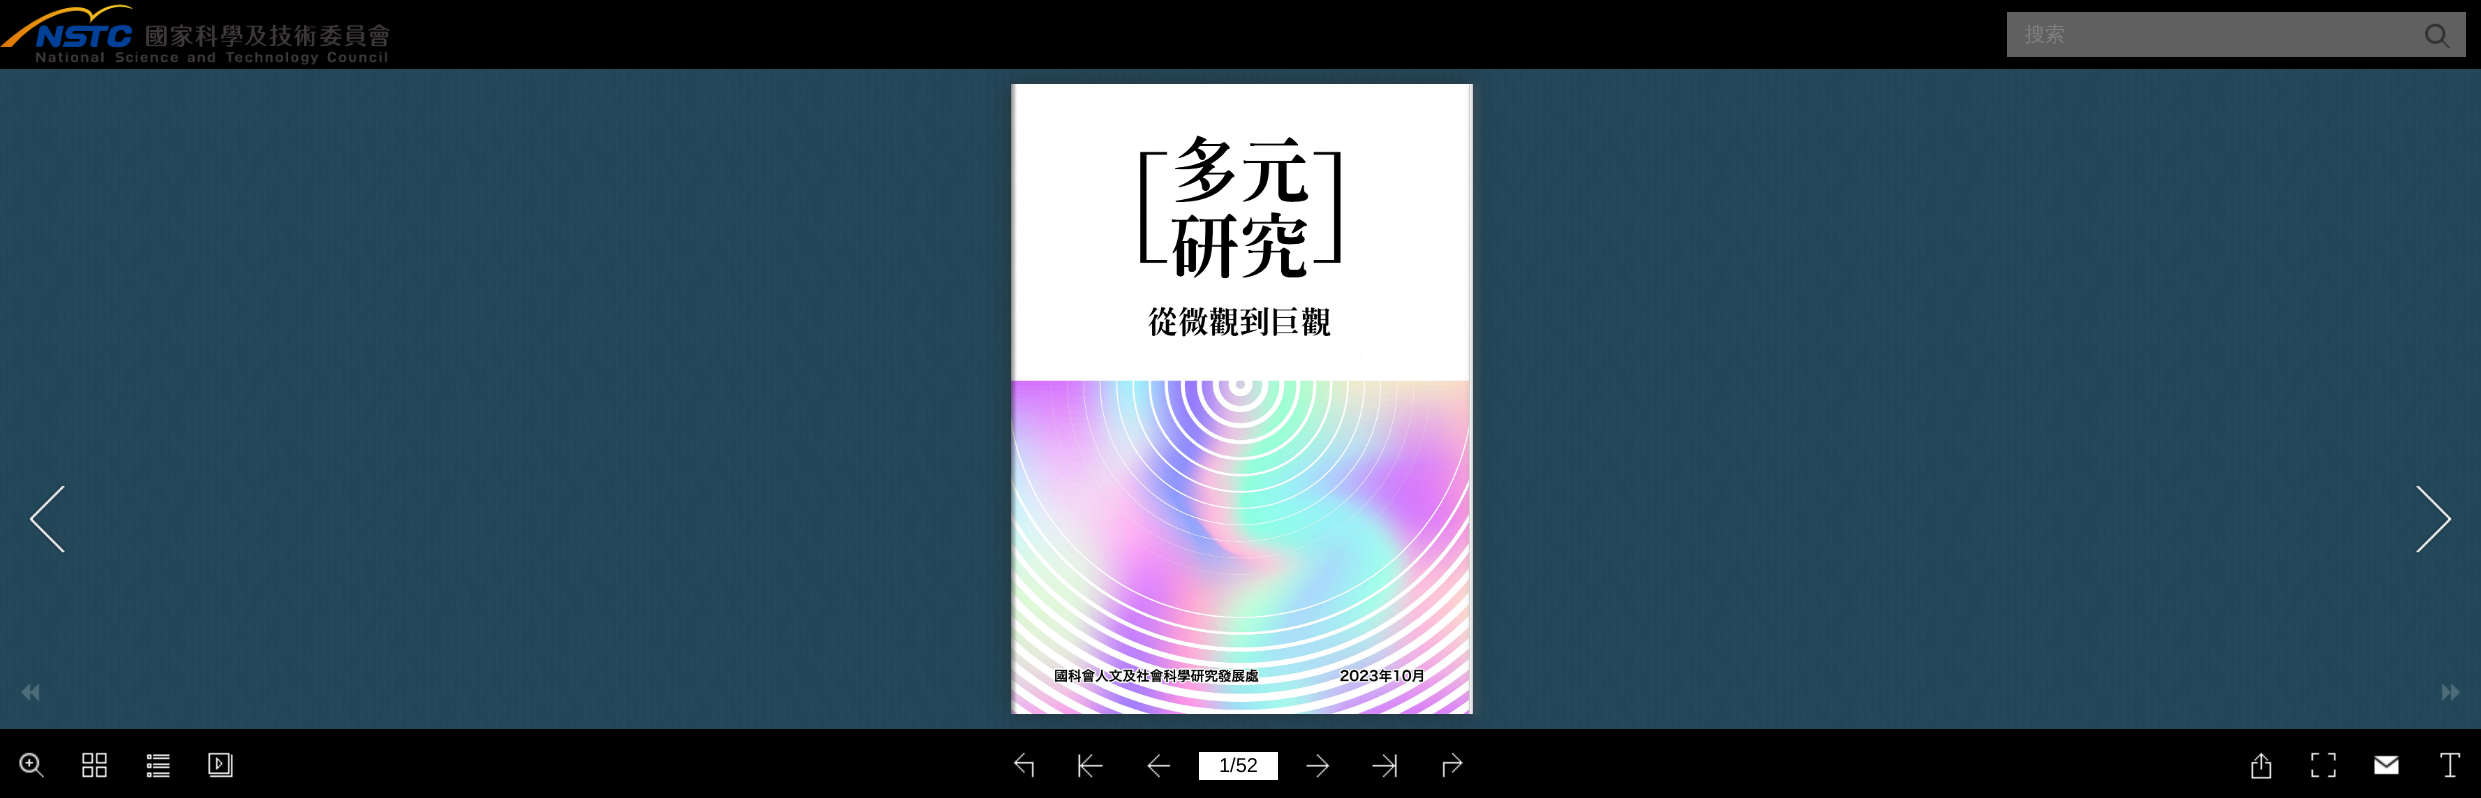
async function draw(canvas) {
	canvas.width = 2481;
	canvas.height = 798;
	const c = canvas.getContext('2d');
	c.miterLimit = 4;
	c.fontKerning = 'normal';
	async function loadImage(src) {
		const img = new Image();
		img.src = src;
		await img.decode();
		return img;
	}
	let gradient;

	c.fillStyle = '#fff';
	c.fillRect(0, 0, 2481, 798);
	c.drawImage(await loadImage('img6.png'), 0, 69, 2481, 660);
	c.fillStyle = '#282828b3';
	c.filter = 'blur(11px)';
	c.beginPath();
	c.rect(1011, 84, 459, 630);
	c.fill();
	c.filter = 'none';
	c.fillStyle = '#000';
	c.fillRect(0, 0, 2481, 69);
	c.drawImage(await loadImage('img1.png'), 0, 4, 390, 61);
	c.fillStyle = '#606060';
	c.fillRect(2007, 12, 459, 45);
	c.font = '500 20px WenQuanYi Zen Hei';
	c.fillStyle = '#808080';
	c.fillText('搜索', 2025, 41);
	c.drawImage(await loadImage('img2.png'), 2425, 23, 25, 26);
	c.drawImage(await loadImage('img5.png'), 1011, 713, 458, 1);
	c.drawImage(await loadImage('img5.png'), 1011, 713, 458, 1);
	c.drawImage(await loadImage('img3.png'), 1011, 84, 458, 630);
	gradient = c.createLinearGradient(1011, 399, 1017, 399);
	gradient.addColorStop(0, '#14141480');
	gradient.addColorStop(1, '#14141400');
	c.fillStyle = gradient;
	c.fillRect(1011, 84, 6, 630);
	c.fillStyle = '#7d7d7db3';
	c.filter = 'blur(4.5px)';
	c.beginPath();
	c.rect(1473, 84, 3, 630);
	c.fill();
	c.filter = 'none';
	c.fillStyle = '#ccc';
	c.fillRect(1469, 84, 3, 630);
	c.drawImage(await loadImage('img4.png'), 1470, 84, 3, 630);
	c.drawImage(await loadImage('img7.png'), 28, 484, 38, 70);
	c.drawImage(await loadImage('img8.png'), 2415, 484, 38, 70);
	c.drawImage(await loadImage('img9.png'), 21, 684, 19, 17);
	c.drawImage(await loadImage('img10.png'), 2441, 684, 20, 17);
	c.fillStyle = '#000';
	c.fillRect(0, 729, 2481, 69);
	c.drawImage(await loadImage('img11.png'), 19, 752, 25, 26);
	c.drawImage(await loadImage('img12.png'), 82, 752, 25, 26);
	c.drawImage(await loadImage('img13.png'), 146, 754, 24, 24);
	c.drawImage(await loadImage('img14.png'), 208, 752, 25, 26);
	c.drawImage(await loadImage('img15.png'), 1013, 752, 21, 26);
	c.drawImage(await loadImage('img16.png'), 1078, 754, 25, 24);
	c.drawImage(await loadImage('img17.png'), 1147, 754, 24, 24);
	c.fillStyle = '#fff';
	c.fillRect(1199, 752, 79, 28);
	c.font = '20px Liberation Sans';
	c.fillStyle = '#000';
	c.fillText('1/52', 1219, 772);
	c.drawImage(await loadImage('img18.png'), 1306, 754, 24, 24);
	c.drawImage(await loadImage('img19.png'), 1372, 754, 25, 24);
	c.drawImage(await loadImage('img20.png'), 1442, 752, 21, 26);
	c.drawImage(await loadImage('img21.png'), 2251, 752, 21, 27);
	c.drawImage(await loadImage('img22.png'), 2311, 752, 25, 26);
	c.drawImage(await loadImage('img23.png'), 2374, 755, 25, 20);
	c.drawImage(await loadImage('img24.png'), 2440, 752, 21, 26);
}

draw(document.querySelector('canvas'));
